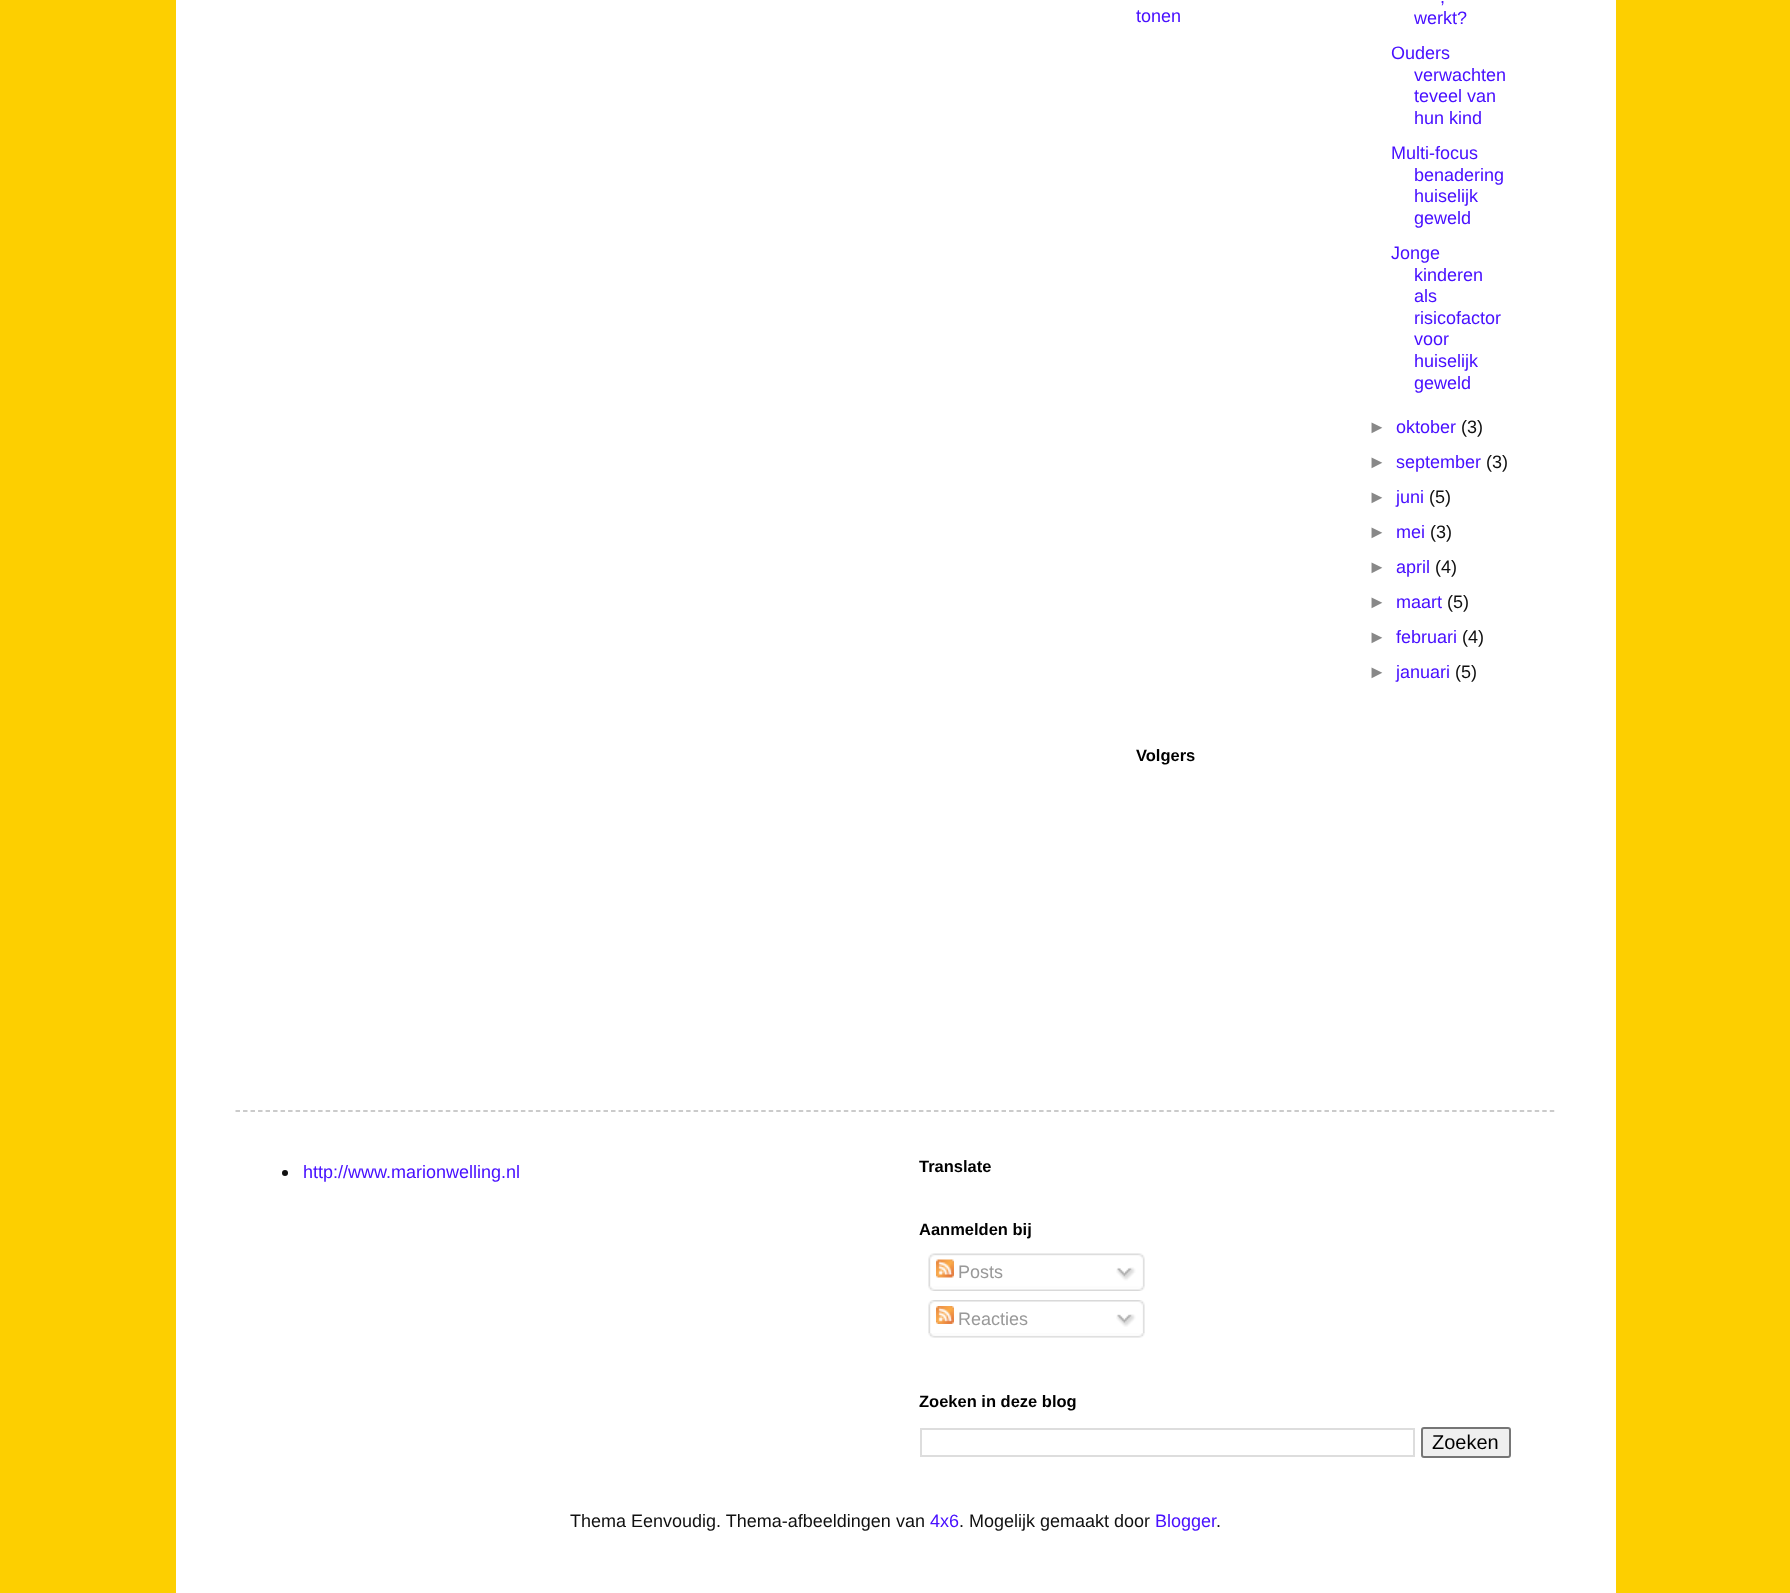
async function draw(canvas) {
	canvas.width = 1790;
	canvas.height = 1593;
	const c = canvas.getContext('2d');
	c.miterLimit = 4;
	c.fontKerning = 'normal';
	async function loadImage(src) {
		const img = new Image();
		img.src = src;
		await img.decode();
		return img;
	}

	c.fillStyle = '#fdcf00';
	c.fillRect(0, 0, 1790, 1593);
	c.fillStyle = '#fff';
	c.fillRect(176, 0, 1440, 1593);
	c.font = '18px Liberation Sans';
	c.fillStyle = '#4911ff';
	for (const [text, x, y] of [
		['tonen', 1136, 22],
		[',', 1440, 3],
		['werkt?', 1414, 24],
		['Ouders', 1391, 59],
		['verwachten', 1414, 81],
		['teveel van', 1414, 102],
		['hun kind', 1414, 124],
		['Multi-focus', 1391, 159],
		['benadering', 1414, 181],
		['huiselijk', 1414, 202],
		['geweld', 1414, 224],
		['Jonge', 1391, 259],
		['kinderen', 1414, 281],
		['als', 1414, 302],
		['risicofactor', 1414, 324],
		['voor', 1414, 345],
		['huiselijk', 1414, 367],
		['geweld', 1414, 389],
	]) {
		c.fillText(text, x, y);
	}
	c.fillStyle = '#888';
	c.fillText('►', 1368, 433);
	c.fillStyle = '#4911ff';
	c.fillText('oktober', 1396, 433);
	c.fillStyle = '#101010';
	c.fillText('(3)', 1461, 433);
	c.fillStyle = '#888';
	c.fillText('►', 1368, 468);
	c.fillStyle = '#4911ff';
	c.fillText('september', 1396, 468);
	c.fillStyle = '#101010';
	c.fillText('(3)', 1486, 468);
	c.fillStyle = '#888';
	c.fillText('►', 1368, 503);
	c.fillStyle = '#4911ff';
	c.fillText('juni', 1396, 503);
	c.fillStyle = '#101010';
	c.fillText('(5)', 1429, 503);
	c.fillStyle = '#888';
	c.fillText('►', 1368, 538);
	c.fillStyle = '#4911ff';
	c.fillText('mei', 1396, 538);
	c.fillStyle = '#101010';
	c.fillText('(3)', 1430, 538);
	c.fillStyle = '#888';
	c.fillText('►', 1368, 573);
	c.fillStyle = '#4911ff';
	c.fillText('april', 1396, 573);
	c.fillStyle = '#101010';
	c.fillText('(4)', 1435, 573);
	c.fillStyle = '#888';
	c.fillText('►', 1368, 608);
	c.fillStyle = '#4911ff';
	c.fillText('maart', 1396, 608);
	c.fillStyle = '#101010';
	c.fillText('(5)', 1447, 608);
	c.fillStyle = '#888';
	c.fillText('►', 1368, 643);
	c.fillStyle = '#4911ff';
	c.fillText('februari', 1396, 643);
	c.fillStyle = '#101010';
	c.fillText('(4)', 1462, 643);
	c.fillStyle = '#888';
	c.fillText('►', 1368, 678);
	c.fillStyle = '#4911ff';
	c.fillText('januari', 1396, 678);
	c.fillStyle = '#101010';
	c.fillText('(5)', 1455, 678);
	c.font = 'bold 16.5px Liberation Sans';
	c.fillStyle = '#000';
	c.fillText('Volgers', 1136, 761);
	c.beginPath();
	c.moveTo(235.5, 1111);
	c.lineTo(1555.5, 1111);
	c.strokeStyle = '#bbb';
	c.lineWidth = 1.5;
	c.setLineDash([4.5, 3.01]);
	c.stroke();
	c.fillStyle = '#101010';
	c.beginPath();
	c.arc(285, 1173, 3, 0, 2 * Math.PI);
	c.fill();
	c.font = '18px Liberation Sans';
	c.fillStyle = '#4911ff';
	c.fillText('http://www.marionwelling.nl', 303, 1178);
	c.font = 'bold 16.5px Liberation Sans';
	c.fillStyle = '#000';
	c.fillText('Translate', 919, 1172);
	c.fillText('Aanmelden bij', 919, 1235);
	c.drawImage(await loadImage('img1.png'), 928, 1253, 217, 34);
	c.drawImage(await loadImage('img2.png'), 936, 1259, 18, 19);
	c.font = '18px Liberation Sans';
	c.fillStyle = '#999';
	c.fillText('Posts', 958, 1278);
	c.drawImage(await loadImage('img3.png'), 1116, 1267, 20, 14);
	c.drawImage(await loadImage('img4.png'), 928, 1286, 217, 5);
	c.drawImage(await loadImage('img5.png'), 928, 1300, 217, 33);
	c.drawImage(await loadImage('img6.png'), 936, 1306, 18, 18);
	c.fillText('Reacties', 958, 1325);
	c.drawImage(await loadImage('img7.png'), 1116, 1314, 20, 13);
	c.drawImage(await loadImage('img8.png'), 928, 1333, 217, 5);
	c.font = 'bold 16.5px Liberation Sans';
	c.fillStyle = '#000';
	c.fillText('Zoeken in deze blog', 919, 1407);
	c.strokeStyle = '#ddd';
	c.lineWidth = 2;
	c.setLineDash([]);
	c.strokeRect(921, 1429, 493, 27);
	c.fillStyle = '#efefef';
	c.beginPath();
	c.roundRect(1422, 1428, 88, 29, 2);
	c.fill();
	c.strokeStyle = '#767676';
	c.stroke();
	c.font = '20px Liberation Sans';
	c.fillStyle = '#000';
	c.fillText('Zoeken', 1432, 1449);
	c.font = '18px Liberation Sans';
	c.fillStyle = '#101010';
	c.fillText('Thema Eenvoudig. Thema-afbeeldingen van', 570, 1527);
	c.fillStyle = '#4911ff';
	c.fillText('4x6', 930, 1527);
	c.fillStyle = '#101010';
	c.fillText('. Mogelijk gemaakt door', 959, 1527);
	c.fillStyle = '#4911ff';
	c.fillText('Blogger', 1155, 1527);
	c.fillStyle = '#101010';
	c.fillText('.', 1216, 1527);
}

draw(document.querySelector('canvas'));
